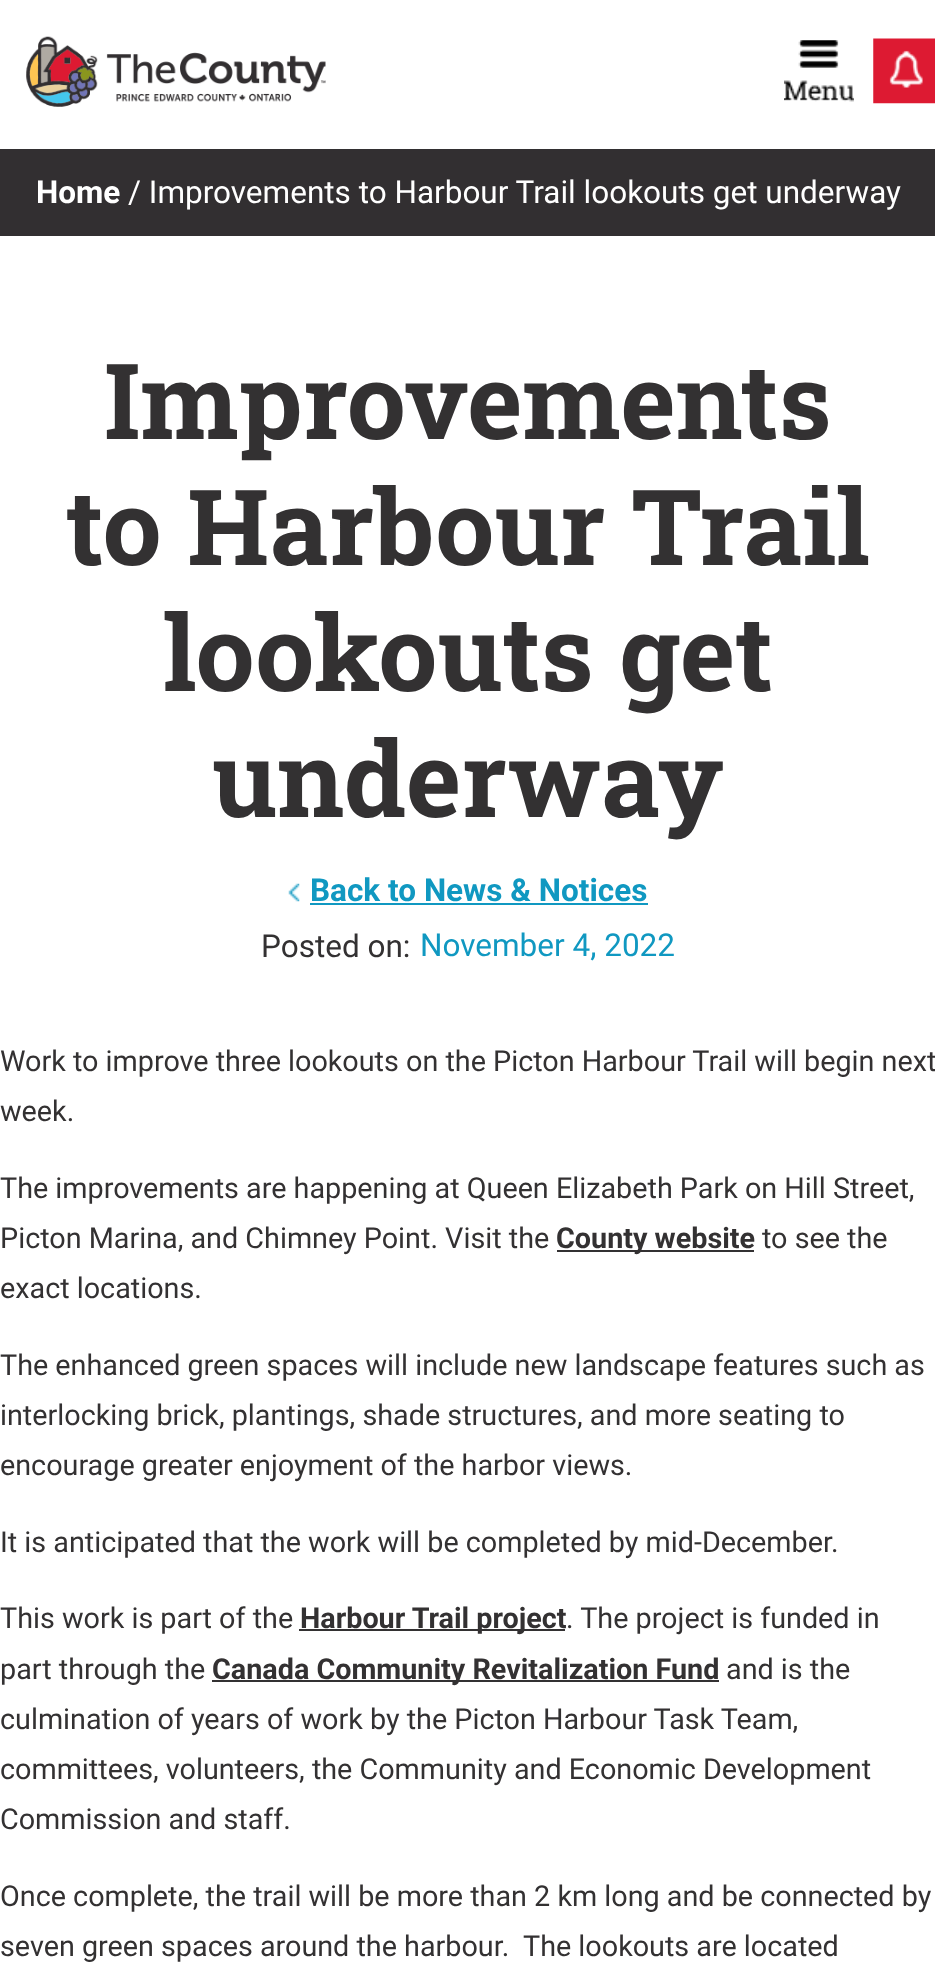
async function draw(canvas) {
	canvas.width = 935;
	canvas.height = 1982;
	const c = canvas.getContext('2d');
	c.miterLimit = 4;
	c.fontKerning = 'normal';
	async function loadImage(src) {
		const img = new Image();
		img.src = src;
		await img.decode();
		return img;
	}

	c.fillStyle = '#fff';
	c.fillRect(0, 0, 935, 1982);
	c.drawImage(await loadImage('img1.png'), 26, 36, 300, 71);
	c.drawImage(await loadImage('img2.png'), 784, 40, 70, 62);
	c.drawImage(await loadImage('img3.png'), 873, 38, 62, 66);
	c.fillStyle = '#322f31';
	c.fillRect(0, 149, 935, 87);
	c.font = 'bold 31.5px Roboto';
	c.fillStyle = '#fff';
	c.fillText('Home', 36, 203);
	c.font = '31.5px Roboto';
	c.fillText('/ Improvements to Harbour Trail lookouts get underway', 128, 203);
	c.font = 'bold 105px Roboto Slab';
	c.fillStyle = '#333132';
	for (const [text, x, y] of [
		['Improvements', 104, 439],
		['to Harbour Trail', 66, 565],
		['lookouts get', 163, 691],
		['underway', 212, 817],
	]) {
		c.fillText(text, x, y);
	}
	c.drawImage(await loadImage('img4.png'), 288, 883, 12, 19);
	c.font = 'bold 31.5px Roboto';
	c.fillStyle = '#1098c1';
	c.fillText('Back to News & Notices', 310, 901);
	c.fillRect(310, 903, 338, 2);
	c.font = '31.5px Roboto';
	c.fillStyle = '#333132';
	c.fillText('Posted on:', 261, 957);
	c.fillStyle = '#1098c1';
	c.fillText('November 4, 2022', 420, 956);
	c.font = '28.75px Roboto';
	c.fillStyle = '#333132';
	for (const [text, x, y] of [
		['Work to improve three lookouts on the Picton Harbour Trail will begin next', 0, 1071],
		['week.', 0, 1121],
		['The improvements are happening at Queen Elizabeth Park on Hill Street,', 0, 1198],
		['Picton Marina, and Chimney Point. Visit the', 0, 1248],
	]) {
		c.fillText(text, x, y);
	}
	c.fillRect(557, 1250, 197, 2);
	c.font = 'bold 28.75px Roboto';
	c.fillText('County website', 556, 1248);
	c.font = '28.75px Roboto';
	for (const [text, x, y] of [
		['to see the', 762, 1248],
		['exact locations.', 0, 1298],
		['The enhanced green spaces will include new landscape features such as', 0, 1375],
		['interlocking brick, plantings, shade structures, and more seating to', 0, 1425],
		['encourage greater enjoyment of the harbor views.', 0, 1475],
		['It is anticipated that the work will be completed by mid-December.', 0, 1552],
		['This work is part of the', 0, 1628],
	]) {
		c.fillText(text, x, y);
	}
	c.fillRect(299, 1629, 266, 2);
	c.font = 'bold 28.75px Roboto';
	c.fillText('Harbour Trail project', 300, 1628);
	c.font = '28.75px Roboto';
	c.fillText('. The project is funded in', 566, 1628);
	c.fillText('part through the', 0, 1679);
	c.fillRect(212, 1680, 507, 2);
	c.font = 'bold 28.75px Roboto';
	c.fillText('Canada Community Revitalization Fund', 212, 1679);
	c.font = '28.75px Roboto';
	for (const [text, x, y] of [
		['and is the', 726, 1679],
		['culmination of years of work by the Picton Harbour Task Team,', 0, 1729],
		['committees, volunteers, the Community and Economic Development', 0, 1779],
		['Commission and staff.', 0, 1829],
		['Once complete, the trail will be more than 2 km long and be connected by', 0, 1906],
		['seven green spaces around the harbour.  The lookouts are located', 0, 1956],
	]) {
		c.fillText(text, x, y);
	}
}

draw(document.querySelector('canvas'));
